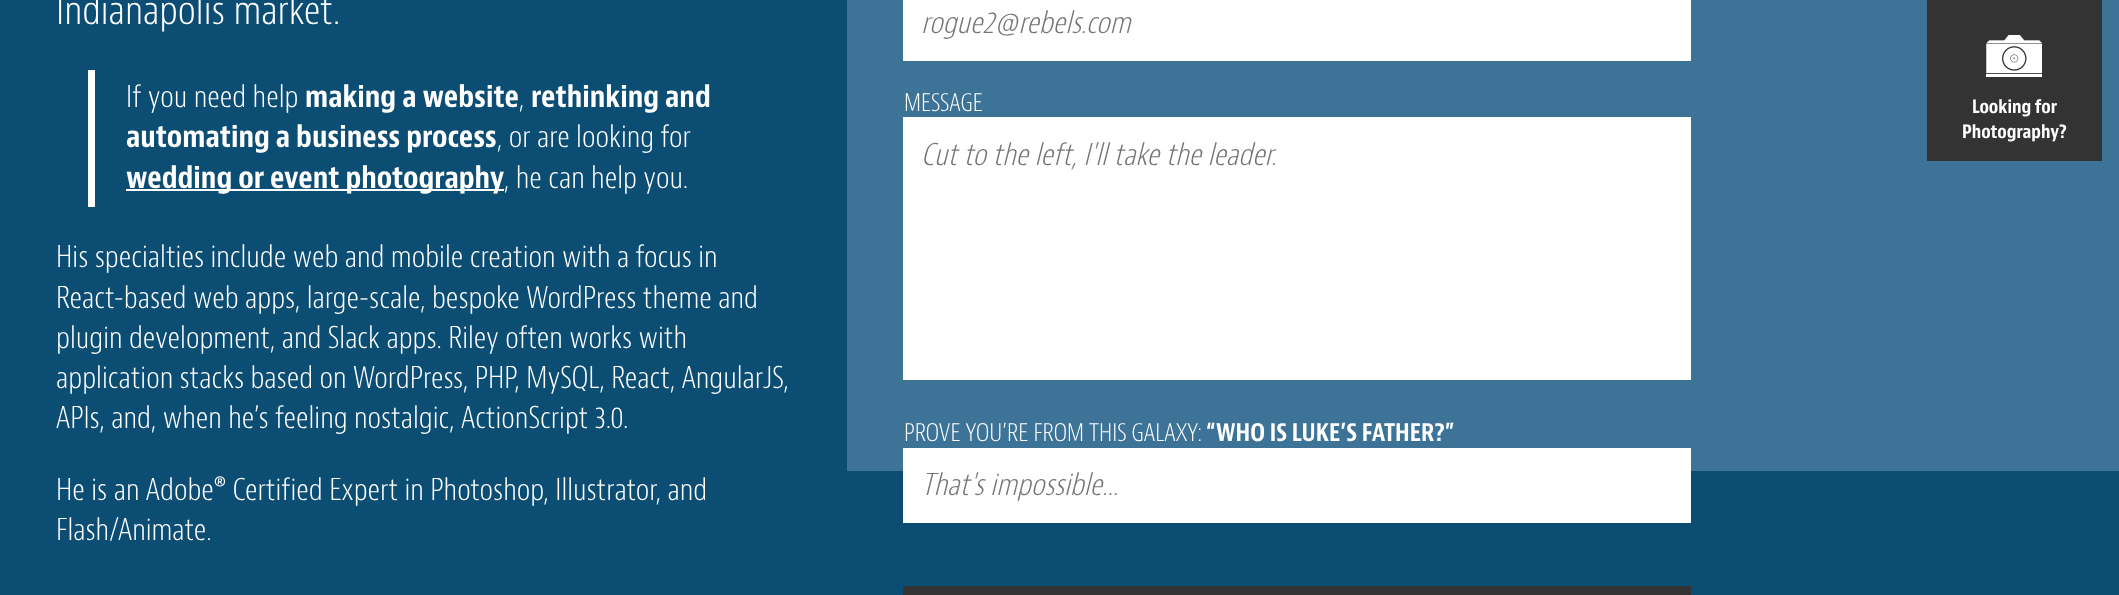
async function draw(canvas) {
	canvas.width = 2119;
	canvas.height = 595;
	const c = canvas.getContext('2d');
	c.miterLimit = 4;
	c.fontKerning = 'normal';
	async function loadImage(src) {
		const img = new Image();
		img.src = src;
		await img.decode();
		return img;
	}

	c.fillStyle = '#0c4d73';
	c.fillRect(0, 0, 2119, 595);
	c.font = '300 42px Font';
	c.fillStyle = '#fff';
	c.fillText('Indianapolis market.', 56, 24);
	c.fillRect(88, 70, 7, 137);
	c.font = '300 31.5px Font';
	c.fillText('If you need help', 126, 107);
	c.font = 'bold 31.5px Font';
	c.fillText('making a website', 305, 107);
	c.font = '300 31.5px Font';
	c.fillText(',', 519, 107);
	c.font = 'bold 31.5px Font';
	c.fillText('rethinking and', 531, 107);
	c.fillText('automating a business process', 126, 147);
	c.font = '300 31.5px Font';
	c.fillText(', or are looking for', 497, 147);
	c.fillRect(126, 189, 378, 2);
	c.font = 'bold 31.5px Font';
	c.fillText('wedding or event photography', 126, 188);
	c.font = '300 31.5px Font';
	for (const [text, x, y] of [
		[', he can help you.', 504, 188],
		['His specialties include web and mobile creation with a focus in', 56, 267],
		['React-based web apps, large-scale, bespoke WordPress theme and', 56, 308],
		['plugin development, and Slack apps. Riley often works with', 56, 348],
		['application stacks based on WordPress, PHP, MySQL, React, AngularJS,', 56, 388],
		['APIs, and, when he’s feeling nostalgic, ActionScript 3.0.', 56, 428],
		['He is an Adobe® Certified Expert in Photoshop, Illustrator, and', 56, 500],
		['Flash/Animate.', 56, 540],
	]) {
		c.fillText(text, x, y);
	}
	c.fillStyle = '#3d7396';
	c.fillRect(847, 0, 1272, 471);
	c.fillStyle = '#fff';
	c.fillRect(903, 0, 788, 61);
	c.font = 'italic 300 31.5px Font';
	c.fillStyle = '#757575';
	c.fillText('rogue2@rebels.com', 921, 33);
	c.font = '300 25.25px Font';
	c.fillStyle = '#fff';
	c.fillText('MESSAGE', 904, 111);
	c.fillRect(903, 117, 788, 263);
	c.font = 'italic 300 31.5px Font';
	c.fillStyle = '#757575';
	c.fillText('Cut to the left, I\'ll take the leader.', 921, 165);
	c.font = '300 25.25px Font';
	c.fillStyle = '#fff';
	c.fillText('PROVE YOU’RE FROM THIS GALAXY:', 904, 441);
	c.font = 'bold 25.25px Font';
	c.fillText('“WHO IS LUKE’S FATHER?”', 1206, 441);
	c.fillRect(903, 448, 788, 75);
	c.font = 'italic 300 31.5px Font';
	c.fillStyle = '#757575';
	c.fillText('That\'s impossible...', 921, 495);
	c.fillStyle = '#333';
	c.fillRect(903, 586, 788, 9);
	c.fillRect(1927, 0, 175, 161);
	c.drawImage(await loadImage('img1.png'), 1986, 35, 56, 42);
	c.font = 'bold 19.25px Font';
	c.fillStyle = '#fff';
	c.fillText('Looking for', 1972, 113);
	c.fillText('Photography?', 1962, 138);
}

draw(document.querySelector('canvas'));
